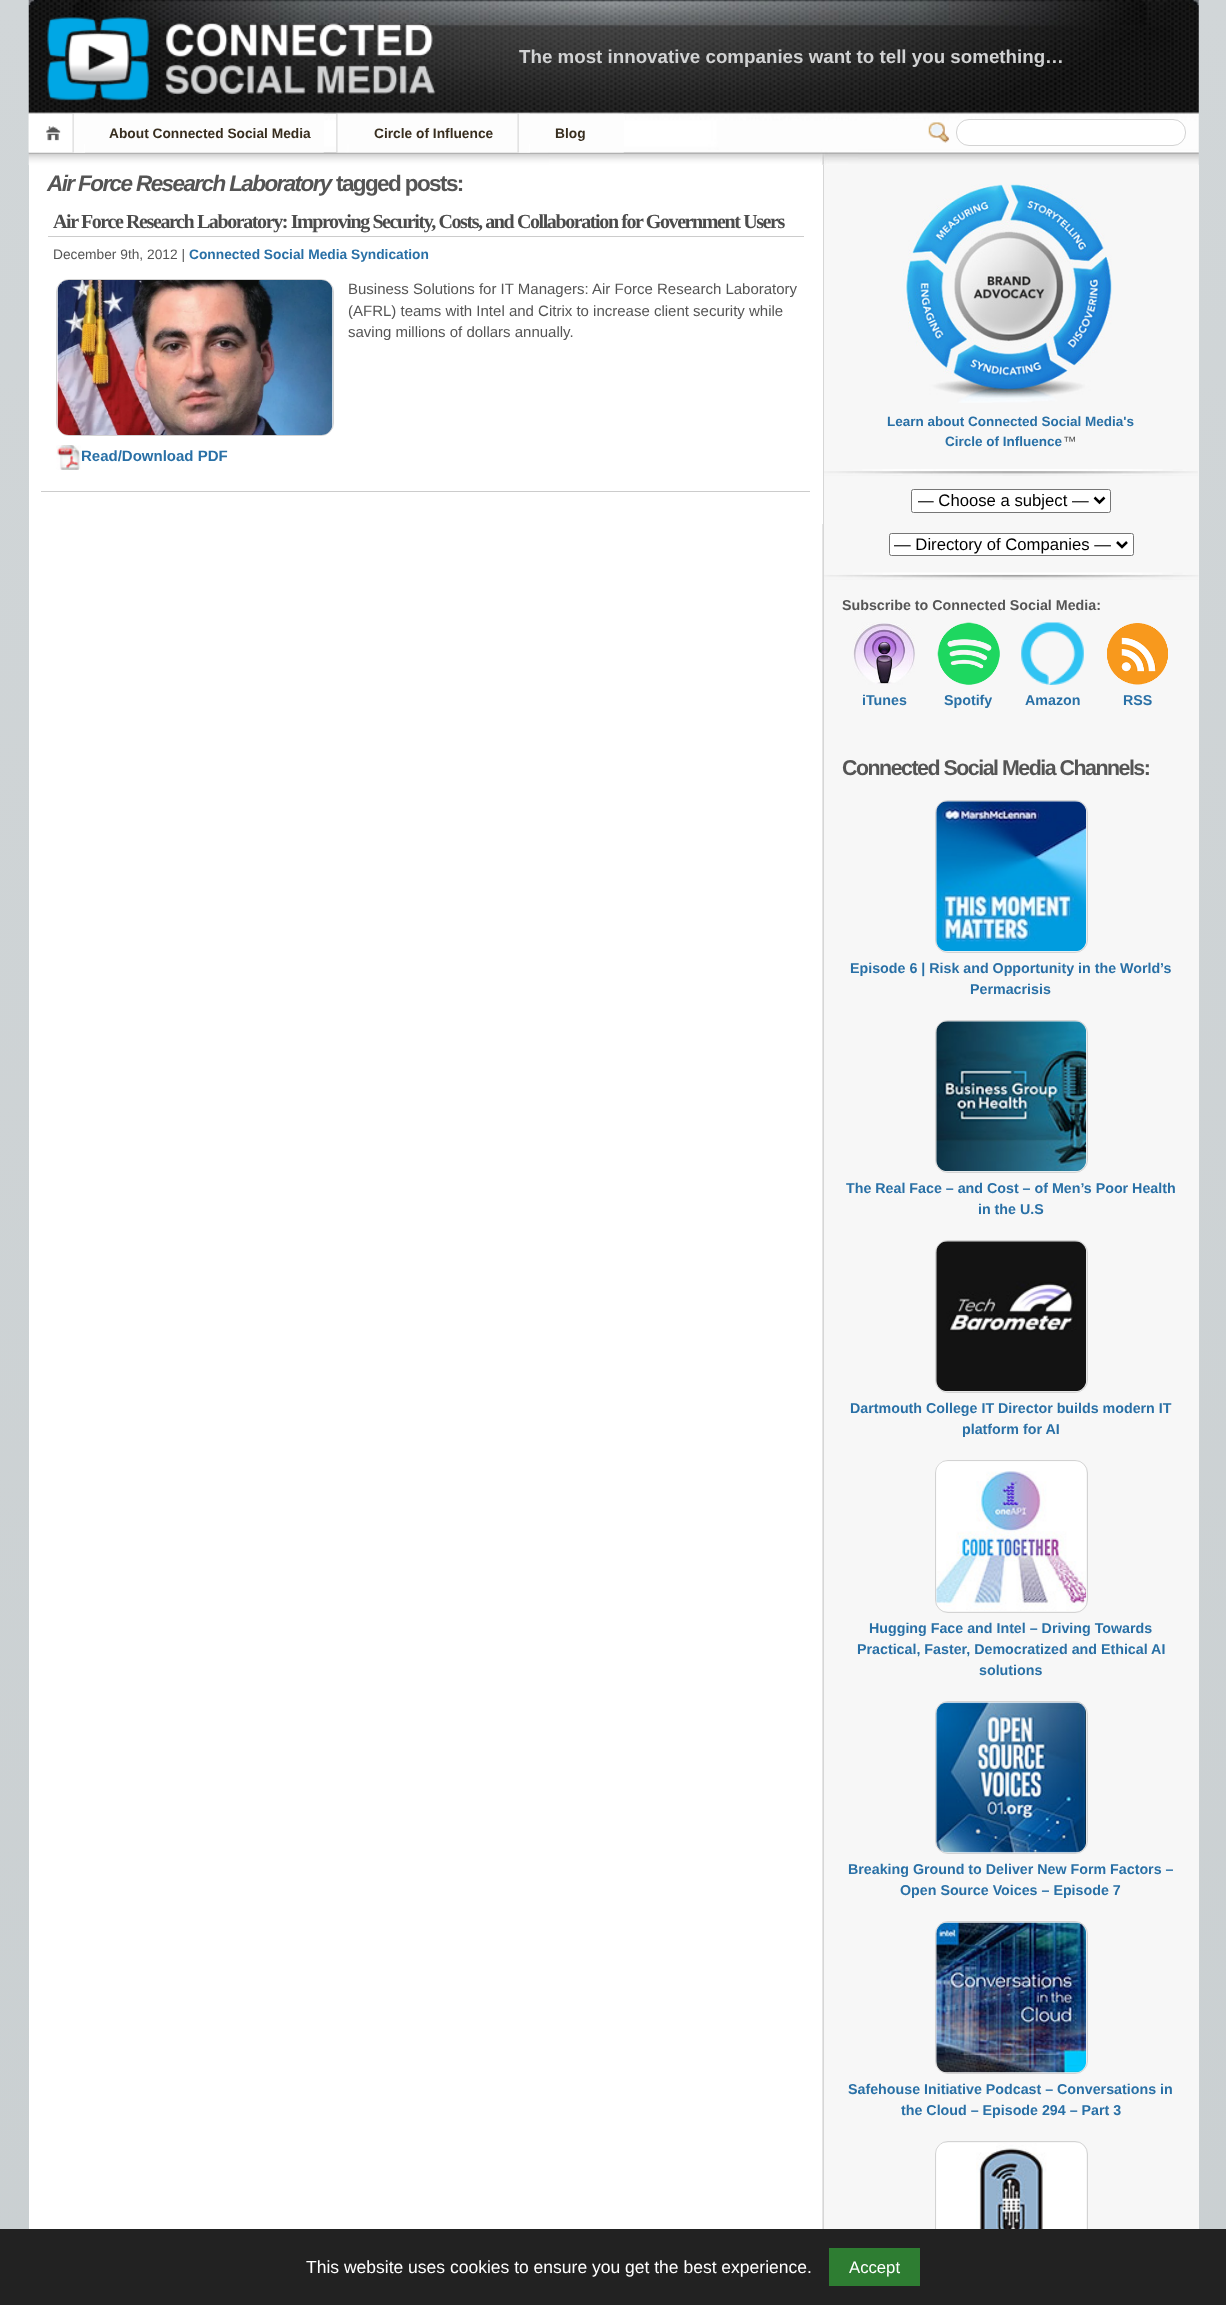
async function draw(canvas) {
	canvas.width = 1226;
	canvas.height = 2305;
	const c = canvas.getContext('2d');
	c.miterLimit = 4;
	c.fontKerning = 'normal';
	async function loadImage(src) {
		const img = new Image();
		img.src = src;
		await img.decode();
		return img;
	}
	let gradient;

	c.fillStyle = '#fff';
	c.fillRect(0, 0, 1226, 2305);
	gradient = c.createLinearGradient(613, 0, 613, 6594);
	gradient.addColorStop(0, '#d1d6d8');
	gradient.addColorStop(1, '#bdc4c6');
	c.fillStyle = gradient;
	c.fillRect(0, 0, 1226, 2229);
	c.drawImage(await loadImage('img1.png'), 28, 0, 1171, 165);
	c.drawImage(await loadImage('img2.png'), 47, 17, 389, 84);
	c.font = 'bold 18.75px Liberation Sans';
	c.fillStyle = '#d1d2d3';
	c.fillText('The most innovative companies want to tell you something…', 519, 63);
	c.drawImage(await loadImage('img3.png'), 28, 113, 57, 40);
	c.drawImage(await loadImage('img4.png'), 72, 113, 252, 40);
	c.font = 'bold 13.75px Liberation Sans';
	c.fillStyle = '#382e1f';
	c.fillText('About Connected Social Media', 109, 138);
	c.drawImage(await loadImage('img5.png'), 336, 113, 194, 40);
	c.fillText('Circle of Influence', 374, 138);
	c.drawImage(await loadImage('img6.png'), 517, 113, 107, 40);
	c.fillText('Blog', 555, 138);
	c.drawImage(await loadImage('img7.png'), 928, 122, 22, 21);
	c.fillStyle = '#fff';
	c.beginPath();
	c.roundRect(956.5, 119.5, 229, 26, 12.5);
	c.fill();
	c.strokeStyle = '#d3d3d3';
	c.stroke();
	c.fillRect(29, 524, 794, 1705);
	c.drawImage(await loadImage('img8.png'), 822, 165, 2, 2064);
	c.fillRect(29, 165, 794, 359);
	c.letterSpacing = '-1.6px';
	c.font = 'italic bold 22.5px Liberation Sans';
	c.fillStyle = '#555';
	c.fillText('Air Force Research Laboratory', 47, 191);
	c.font = 'bold 22.5px Liberation Sans';
	c.fillText('tagged posts:', 336, 191);
	c.fillStyle = '#ccc';
	c.fillRect(48, 236, 756, 1);
	c.letterSpacing = '-1.4px';
	c.font = 'bold 20px Liberation Serif';
	c.fillStyle = '#4c4c4c';
	c.fillText('Air Force Research Laboratory: Improving Security, Costs, and Collaboration for Government Users', 53, 228);
	c.letterSpacing = '0px';
	c.font = '13.75px Liberation Sans';
	c.fillStyle = '#555';
	c.fillText('December 9th, 2012 |', 53, 259);
	c.font = 'bold 13.75px Liberation Sans';
	c.fillStyle = '#2970a6';
	c.fillText('Connected Social Media Syndication', 189, 259);
	c.beginPath();
	c.roundRect(56.5, 279.5, 277, 156, 12.5);
	c.stroke();
	c.drawImage(await loadImage('img9.png'), 57, 280, 276, 155);
	c.font = '15px Liberation Sans';
	c.fillStyle = '#555';
	for (const [text, x, y] of [
		['Business Solutions for IT Managers: Air Force Research Laboratory', 348, 294],
		['(AFRL) teams with Intel and Citrix to increase client security while', 348, 316],
		['saving millions of dollars annually.', 348, 337],
	]) {
		c.fillText(text, x, y);
	}
	c.drawImage(await loadImage('img10.png'), 56, 445, 25, 25);
	c.font = 'bold 15px Liberation Sans';
	c.fillStyle = '#2970a6';
	c.fillText('Read/Download PDF', 81, 461);
	c.fillStyle = '#ccc';
	c.fillRect(41, 491, 769, 1);
	c.fillStyle = '#f7f7f7';
	c.fillRect(824, 165, 375, 2064);
	c.drawImage(await loadImage('img11.png'), 824, 469, 374, 7);
	c.drawImage(await loadImage('img12.png'), 902, 184, 210, 219);
	c.font = 'bold 13.5px Liberation Sans';
	c.fillStyle = '#2970a6';
	c.fillText('Learn about Connected Social Media\'s', 887, 426);
	c.fillText('Circle of Influence', 945, 446);
	c.font = '13.5px Liberation Sans';
	c.fillStyle = '#555';
	c.fillText('™', 1063, 446);
	c.drawImage(await loadImage('img13.png'), 824, 572, 375, 8);
	c.fillStyle = '#fff';
	c.beginPath();
	c.roundRect(911.5, 489.5, 199, 23, 2);
	c.fill();
	c.strokeStyle = '#767676';
	c.stroke();
	c.beginPath();
	c.moveTo(1094.5, 497.5);
	c.lineTo(1099.5, 502.5);
	c.lineTo(1104.5, 497.5);
	c.strokeStyle = '#000';
	c.lineWidth = 2.5;
	c.stroke();
	c.save();
	c.beginPath();
	c.rect(918, 490, 172, 21);
	c.clip();
	c.font = '16.7px Liberation Sans';
	c.fillStyle = '#000';
	c.fillText('— Choose a subject —', 917, 506);
	c.restore();
	c.beginPath();
	c.roundRect(889.5, 533.5, 244, 22, 2);
	c.fill();
	c.strokeStyle = '#767676';
	c.lineWidth = 1;
	c.stroke();
	c.beginPath();
	c.moveTo(1117, 542);
	c.lineTo(1122, 547);
	c.lineTo(1127, 542);
	c.strokeStyle = '#000';
	c.lineWidth = 2.5;
	c.stroke();
	c.font = '16.7px Liberation Sans';
	c.fillStyle = '#000';
	c.fillText('— Directory of Companies —', 894, 550);
	c.font = 'bold 14.25px Liberation Sans';
	c.fillStyle = '#555';
	c.fillText('Subscribe to Connected Social Media:', 842, 610);
	c.drawImage(await loadImage('img14.png'), 853, 622, 62, 63);
	c.fillStyle = '#2970a6';
	c.fillText('iTunes', 862, 705);
	c.drawImage(await loadImage('img15.png'), 937, 622, 63, 63);
	c.fillText('Spotify', 944, 705);
	c.drawImage(await loadImage('img16.png'), 1021, 622, 63, 63);
	c.fillText('Amazon', 1025, 705);
	c.drawImage(await loadImage('img17.png'), 1107, 623, 61, 62);
	c.fillText('RSS', 1123, 705);
	c.letterSpacing = '-1.5px';
	c.font = 'bold 21.4px Liberation Sans';
	c.fillStyle = '#555';
	c.fillText('Connected Social Media Channels:', 842, 775);
	c.beginPath();
	c.roundRect(935.5, 800.5, 152, 152, 12.5);
	c.strokeStyle = '#d3d3d3';
	c.lineWidth = 1;
	c.stroke();
	c.drawImage(await loadImage('img18.png'), 936, 801, 151, 151);
	c.letterSpacing = '0px';
	c.font = 'bold 14.25px Liberation Sans';
	c.fillStyle = '#2970a6';
	c.fillText('Episode 6 | Risk and Opportunity in the World’s', 850, 973);
	c.fillText('Permacrisis', 970, 994);
	c.beginPath();
	c.roundRect(935.5, 1020.5, 152, 152, 12.5);
	c.stroke();
	c.drawImage(await loadImage('img19.png'), 936, 1021, 151, 151);
	c.fillText('The Real Face – and Cost – of Men’s Poor Health', 846, 1193);
	c.fillText('in the U.S', 978, 1214);
	c.beginPath();
	c.roundRect(935.5, 1240.5, 152, 152, 12.5);
	c.stroke();
	c.drawImage(await loadImage('img20.png'), 936, 1241, 151, 151);
	c.fillText('Dartmouth College IT Director builds modern IT', 850, 1413);
	c.fillText('platform for AI', 962, 1434);
	c.beginPath();
	c.roundRect(935.5, 1460.5, 152, 152, 12.5);
	c.stroke();
	c.drawImage(await loadImage('img21.png'), 936, 1461, 151, 150);
	for (const [text, x, y] of [
		['Hugging Face and Intel – Driving Towards', 869, 1633],
		['Practical, Faster, Democratized and Ethical AI', 857, 1654],
		['solutions', 979, 1675],
	]) {
		c.fillText(text, x, y);
	}
	c.beginPath();
	c.roundRect(935.5, 1701.5, 152, 152, 12.5);
	c.stroke();
	c.drawImage(await loadImage('img22.png'), 936, 1702, 151, 151);
	c.fillText('Breaking Ground to Deliver New Form Factors –', 848, 1874);
	c.fillText('Open Source Voices – Episode 7', 900, 1895);
	c.beginPath();
	c.roundRect(935.5, 1921.5, 152, 152, 12.5);
	c.stroke();
	c.drawImage(await loadImage('img23.png'), 936, 1922, 151, 151);
	c.fillText('Safehouse Initiative Podcast – Conversations in', 848, 2094);
	c.fillText('the Cloud – Episode 294 – Part 3', 901, 2115);
	c.beginPath();
	c.roundRect(935.5, 2141.5, 152, 152, 12.5);
	c.stroke();
	c.drawImage(await loadImage('img24.png'), 936, 2143, 150, 86);
	c.fillStyle = '#222';
	c.fillRect(0, 2229, 1226, 76);
	c.font = '17.5px Liberation Sans';
	c.fillStyle = '#fff';
	c.fillText('This website uses cookies to ensure you get the best experience.', 306, 2273);
	c.fillStyle = '#2e7d32';
	c.fillRect(829, 2248, 91, 38);
	c.font = '16.7px Liberation Sans';
	c.fillStyle = '#fff';
	c.fillText('Accept', 849, 2273);
}

draw(document.querySelector('canvas'));
